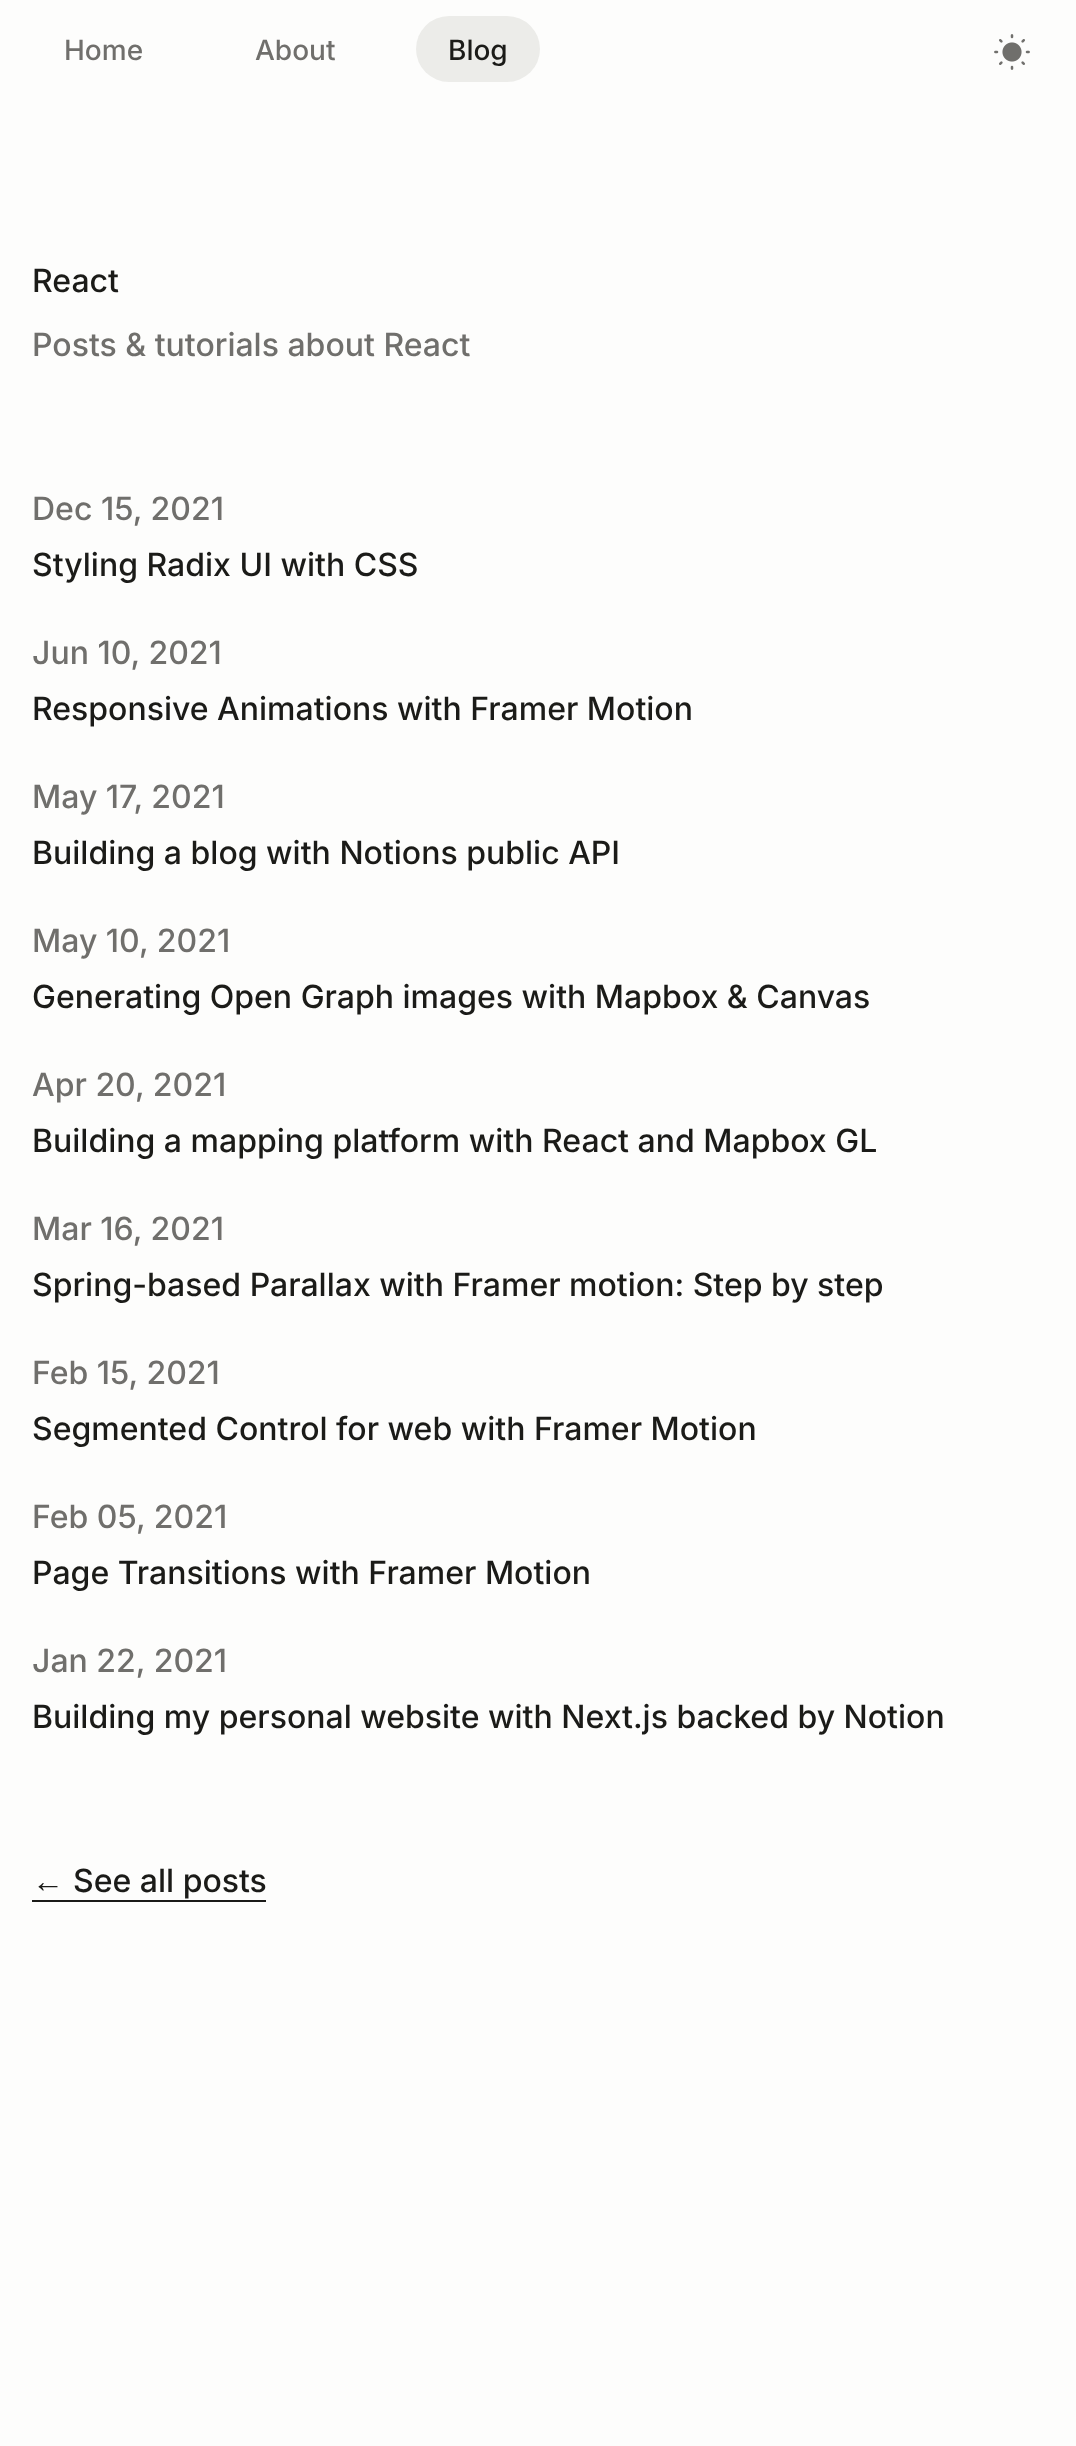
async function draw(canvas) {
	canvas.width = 1076;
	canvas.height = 2446;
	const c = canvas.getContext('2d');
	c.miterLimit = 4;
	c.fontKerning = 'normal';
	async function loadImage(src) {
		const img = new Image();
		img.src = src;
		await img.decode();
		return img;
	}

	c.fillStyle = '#fdfdfc';
	c.fillRect(0, 0, 1076, 2446);
	c.font = '500 28px Inter';
	c.fillStyle = '#706f6c';
	c.fillText('Home', 64, 60);
	c.fillText('About', 255, 60);
	c.fillStyle = '#ecece9';
	c.beginPath();
	c.roundRect(416, 16, 124, 66, 33);
	c.fill();
	c.fillStyle = '#1b1b18';
	c.fillText('Blog', 448, 60);
	c.drawImage(await loadImage('img1.png'), 994, 34, 36, 36);
	c.font = '500 32px Inter';
	c.fillText('React', 32, 292);
	c.fillStyle = '#706f6c';
	c.fillText('Posts & tutorials about React', 32, 356);
	c.fillText('Dec 15, 2021', 32, 520);
	c.fillStyle = '#1b1b18';
	c.fillText('Styling Radix UI with CSS', 32, 576);
	c.fillStyle = '#706f6c';
	c.fillText('Jun 10, 2021', 32, 664);
	c.fillStyle = '#1b1b18';
	c.fillText('Responsive Animations with Framer Motion', 32, 720);
	c.fillStyle = '#706f6c';
	c.fillText('May 17, 2021', 32, 808);
	c.fillStyle = '#1b1b18';
	c.fillText('Building a blog with Notions public API', 32, 864);
	c.fillStyle = '#706f6c';
	c.fillText('May 10, 2021', 32, 952);
	c.fillStyle = '#1b1b18';
	c.fillText('Generating Open Graph images with Mapbox & Canvas', 32, 1008);
	c.fillStyle = '#706f6c';
	c.fillText('Apr 20, 2021', 32, 1096);
	c.fillStyle = '#1b1b18';
	c.fillText('Building a mapping platform with React and Mapbox GL', 32, 1152);
	c.fillStyle = '#706f6c';
	c.fillText('Mar 16, 2021', 32, 1240);
	c.fillStyle = '#1b1b18';
	c.fillText('Spring-based Parallax with Framer motion: Step by step', 32, 1296);
	c.fillStyle = '#706f6c';
	c.fillText('Feb 15, 2021', 32, 1384);
	c.fillStyle = '#1b1b18';
	c.fillText('Segmented Control for web with Framer Motion', 32, 1440);
	c.fillStyle = '#706f6c';
	c.fillText('Feb 05, 2021', 32, 1528);
	c.fillStyle = '#1b1b18';
	c.fillText('Page Transitions with Framer Motion', 32, 1584);
	c.fillStyle = '#706f6c';
	c.fillText('Jan 22, 2021', 32, 1672);
	c.fillStyle = '#1b1b18';
	c.fillText('Building my personal website with Next.js backed by Notion', 32, 1728);
	c.font = '32px Liberation Serif';
	c.fillText('←', 32, 1892);
	c.fillRect(32, 1900, 234, 2);
	c.font = '500 32px Inter';
	c.fillText('See all posts', 73, 1892);
}

draw(document.querySelector('canvas'));
